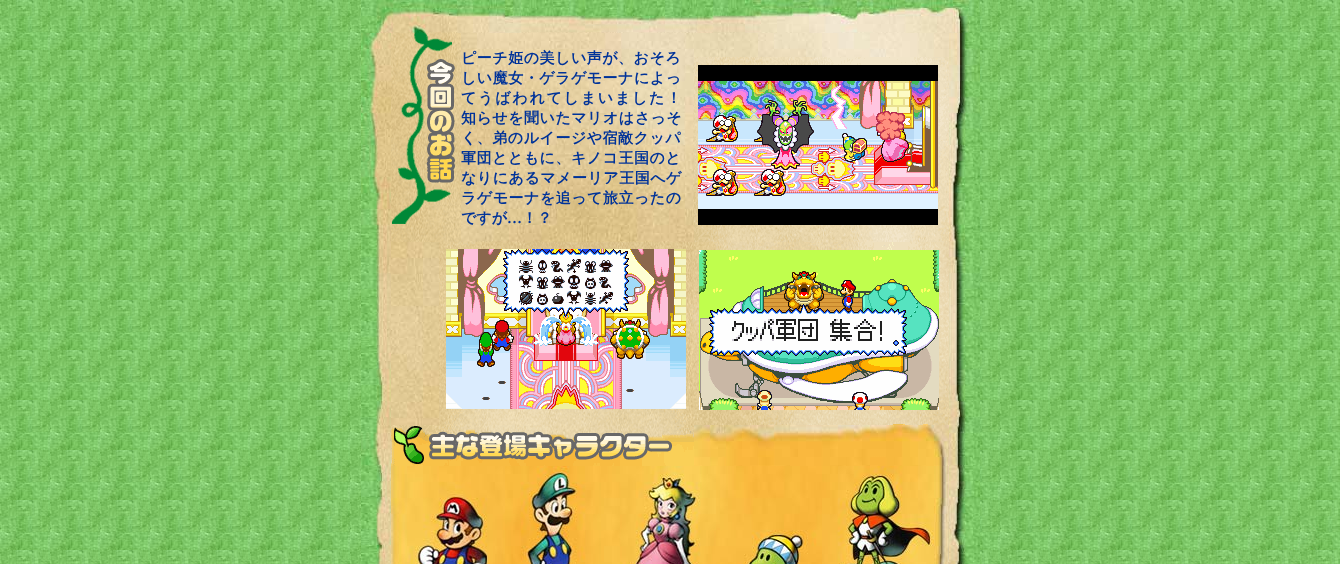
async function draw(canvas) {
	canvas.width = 1340;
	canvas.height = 564;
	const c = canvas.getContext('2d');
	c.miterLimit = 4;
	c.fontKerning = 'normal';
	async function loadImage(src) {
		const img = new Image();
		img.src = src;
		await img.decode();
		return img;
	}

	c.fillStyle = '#fff';
	c.fillRect(0, 0, 1340, 564);
	c.drawImage(await loadImage('img1.png'), 0, 0, 1340, 564);
	c.drawImage(await loadImage('img2.png'), 361, 0, 619, 33);
	c.drawImage(await loadImage('img3.png'), 361, 33, 30, 531);
	c.drawImage(await loadImage('img4.png'), 391, 33, 70, 209);
	c.drawImage(await loadImage('img5.png'), 461, 33, 233, 209);
	c.letterSpacing = '0.5px';
	c.font = 'bold 15px WenQuanYi Zen Hei';
	c.fillStyle = '#039';
	c.fillText('ピーチ姫の美しい声が、おそろ', 461, 63);
	c.fillText('しい魔女・ゲラゲモーナによっ', 461, 83);
	c.letterSpacing = '1.75px';
	c.fillText('てうばわれてしまいました！', 461, 103);
	c.letterSpacing = '0.5px';
	for (const [text, x, y] of [
		['知らせを聞いたマリオはさっそ', 461, 123],
		['く、弟のルイージや宿敵クッパ', 461, 143],
		['軍団とともに、キノコ王国のと', 461, 163],
		['なりにあるマメーリア王国へゲ', 461, 183],
		['ラゲモーナを追って旅立ったの', 461, 203],
	]) {
		c.fillText(text, x, y);
	}
	c.letterSpacing = '0px';
	c.fillText('ですが', 461, 223);
	c.font = 'bold 15px Liberation Serif';
	c.fillText('…', 507, 223);
	c.font = 'bold 15px WenQuanYi Zen Hei';
	c.fillText('！？', 522, 223);
	c.drawImage(await loadImage('img6.png'), 694, 33, 255, 24);
	c.drawImage(await loadImage('img7.png'), 949, 33, 31, 531);
	c.drawImage(await loadImage('img8.png'), 694, 57, 255, 185);
	c.drawImage(await loadImage('img9.png'), 391, 242, 48, 183);
	c.drawImage(await loadImage('img10.png'), 439, 242, 255, 183);
	c.drawImage(await loadImage('img11.png'), 694, 242, 255, 183);
	c.drawImage(await loadImage('img12.png'), 391, 425, 303, 41);
	c.drawImage(await loadImage('img13.png'), 694, 425, 255, 41);
	c.drawImage(await loadImage('img14.png'), 391, 466, 114, 98);
	c.drawImage(await loadImage('img15.png'), 505, 466, 99, 98);
	c.drawImage(await loadImage('img16.png'), 604, 466, 116, 98);
	c.drawImage(await loadImage('img17.png'), 720, 466, 102, 98);
	c.drawImage(await loadImage('img18.png'), 822, 466, 112, 98);
	c.drawImage(await loadImage('img19.png'), 934, 466, 15, 98);
}

draw(document.querySelector('canvas'));
